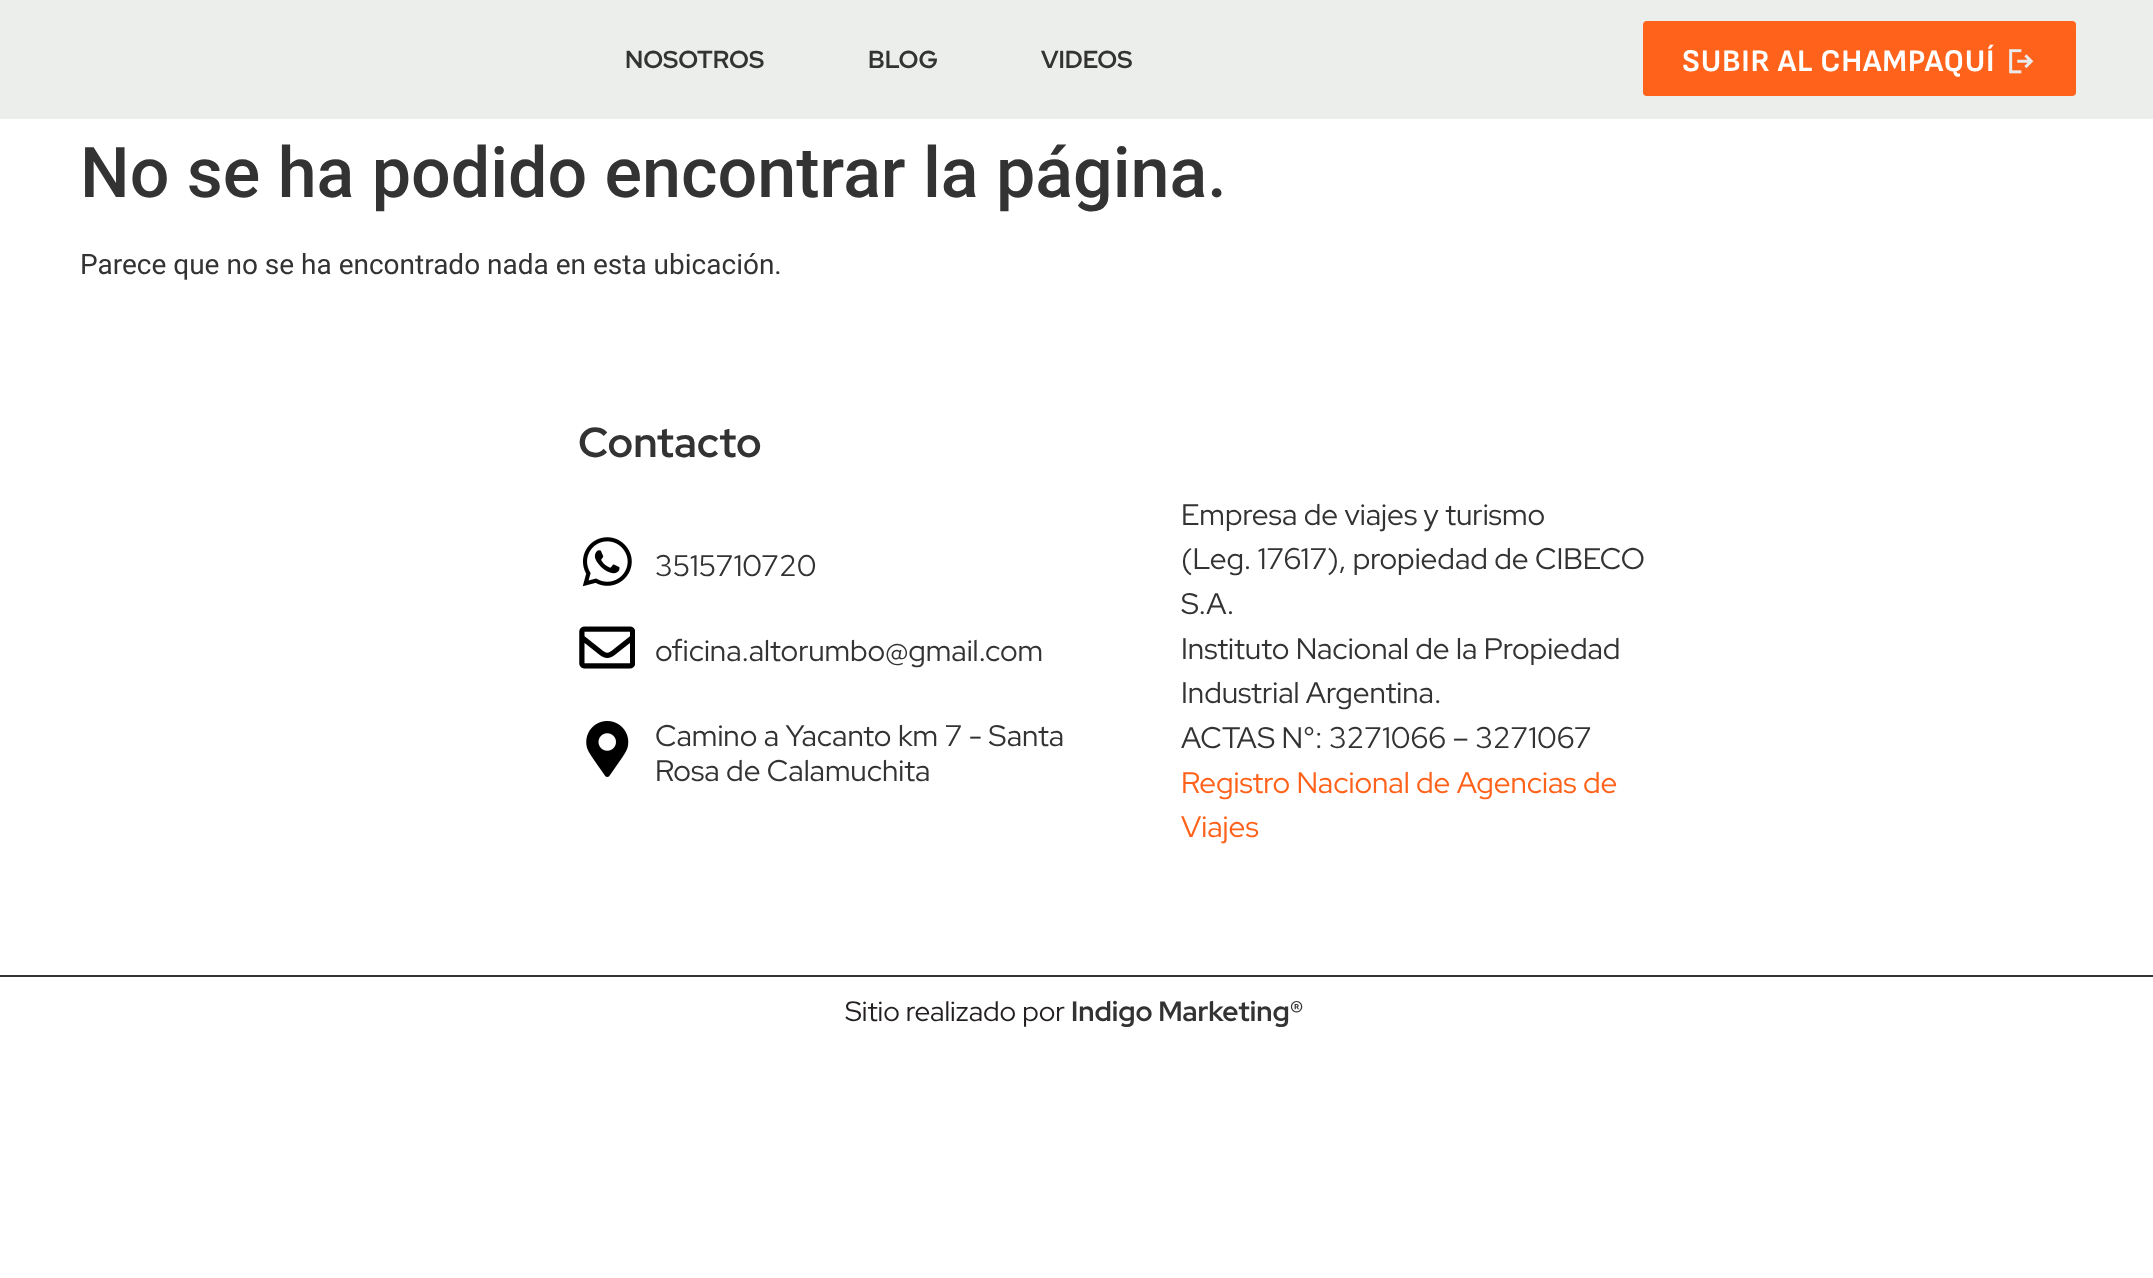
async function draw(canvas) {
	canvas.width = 2153;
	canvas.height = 1278;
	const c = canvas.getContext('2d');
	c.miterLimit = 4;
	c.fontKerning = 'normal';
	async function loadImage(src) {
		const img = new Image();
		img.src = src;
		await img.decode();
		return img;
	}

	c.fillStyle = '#fff';
	c.fillRect(0, 0, 2153, 1278);
	c.fillStyle = '#ebeeea';
	c.fillRect(0, 0, 2153, 119);
	c.font = 'bold 24.5px Red Hat Display';
	c.fillStyle = '#333';
	for (const [text, x, y] of [
		['NOSOTROS', 625, 68],
		['BLOG', 868, 68],
		['VIDEOS', 1041, 68],
	]) {
		c.fillText(text, x, y);
	}
	c.fillStyle = '#ff621a';
	c.beginPath();
	c.roundRect(1643, 21, 433, 75, 4);
	c.fill();
	c.letterSpacing = '0.75px';
	c.font = 'bold 31.5px Sofia Sans';
	c.fillStyle = '#fff';
	c.fillText('SUBIR AL CHAMPAQUÍ', 1682, 71);
	c.drawImage(await loadImage('img1.png'), 2009, 49, 25, 25);
	c.letterSpacing = '0px';
	c.font = '500 70px Roboto';
	c.fillStyle = '#333';
	c.fillText('No se ha podido encontrar la página.', 80, 197);
	c.font = '28px Roboto';
	c.fillText('Parece que no se ha encontrado nada en esta ubicación.', 80, 274);
	c.font = 'bold 42px Red Hat Display';
	c.fillText('Contacto', 578, 457);
	c.drawImage(await loadImage('img2.png'), 582, 537, 50, 50);
	c.font = '29.75px Red Hat Display';
	c.fillText('3515710720', 655, 576);
	c.drawImage(await loadImage('img3.png'), 579, 626, 56, 43);
	c.fillText('oficina.altorumbo@gmail.com', 655, 661);
	c.drawImage(await loadImage('img4.png'), 586, 721, 43, 56);
	for (const [text, x, y] of [
		['Camino a Yacanto km 7 - Santa', 655, 746],
		['Rosa de Calamuchita', 655, 781],
		['Empresa de viajes y turismo', 1181, 525],
		['(Leg. 17617), propiedad de CIBECO', 1181, 569],
		['S.A.', 1181, 614],
		['Instituto Nacional de la Propiedad', 1181, 659],
		['Industrial Argentina.', 1181, 703],
		['ACTAS N°: 3271066 – 3271067', 1181, 748],
	]) {
		c.fillText(text, x, y);
	}
	c.fillStyle = '#ff621a';
	c.fillText('Registro Nacional de Agencias de', 1181, 793);
	c.fillText('Viajes', 1181, 837);
	c.fillStyle = '#333';
	c.fillRect(0, 975, 2153, 2);
	c.font = '28px Red Hat Display';
	c.fillStyle = '#231f20';
	c.fillText('Sitio realizado por', 845, 1021);
	c.font = 'bold 28px Red Hat Display';
	c.fillStyle = '#333';
	c.fillText('Indigo Marketing®', 1071, 1021);
}

draw(document.querySelector('canvas'));
